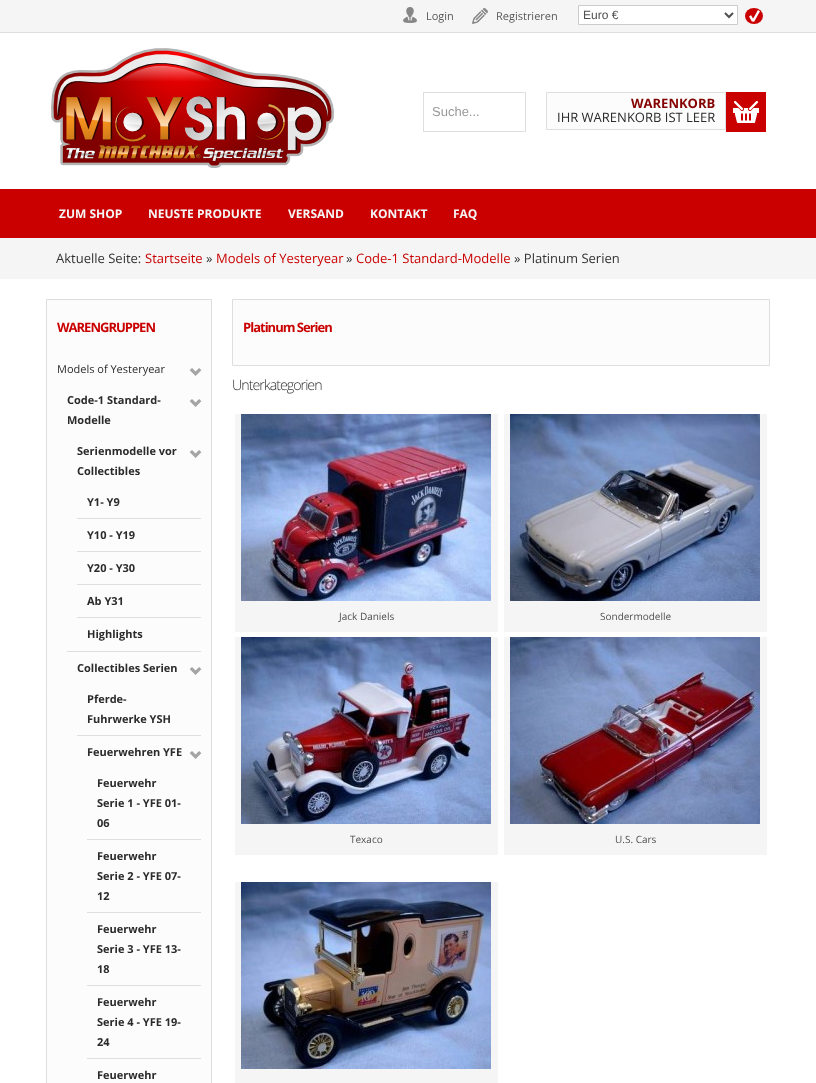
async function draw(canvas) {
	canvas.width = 816;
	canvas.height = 1083;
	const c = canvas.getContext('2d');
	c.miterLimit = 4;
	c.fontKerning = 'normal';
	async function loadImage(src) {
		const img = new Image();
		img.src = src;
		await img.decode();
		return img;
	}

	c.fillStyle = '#fff';
	c.fillRect(0, 0, 816, 1083);
	c.fillStyle = '#f5f5f5';
	c.fillRect(0, 0, 816, 32);
	c.fillStyle = '#dedede';
	c.fillRect(0, 32, 816, 1);
	c.drawImage(await loadImage('img1.png'), 403, 7, 14, 16);
	c.font = '11px Open Sans';
	c.fillStyle = '#595959';
	c.fillText('Login', 426, 20);
	c.drawImage(await loadImage('img2.png'), 472, 8, 16, 16);
	c.fillText('Registrieren', 496, 20);
	c.fillStyle = '#fff';
	c.beginPath();
	c.rect(578.5, 5.5, 159, 19);
	c.fill();
	c.strokeStyle = '#ccc';
	c.stroke();
	c.beginPath();
	c.moveTo(725, 13);
	c.lineTo(729, 17);
	c.lineTo(733, 13);
	c.strokeStyle = '#505050';
	c.lineWidth = 2;
	c.stroke();
	c.font = '12px Liberation Sans';
	c.fillStyle = '#505050';
	c.fillText('Euro €', 583, 19);
	c.fillStyle = '#ca0000';
	c.beginPath();
	c.ellipse(754, 16, 9, 8, 0, 0, 2 * Math.PI);
	c.fill();
	c.drawImage(await loadImage('img3.png'), 749, 10, 11, 12);
	c.drawImage(await loadImage('img4.png'), 51, 48, 283, 120);
	c.strokeStyle = '#dedede';
	c.lineWidth = 1;
	c.strokeRect(423.5, 92.5, 102, 39);
	c.font = '13px Liberation Sans';
	c.fillStyle = '#999';
	c.fillText('Suche...', 432, 116);
	c.fillStyle = '#fcfcfc';
	c.beginPath();
	c.rect(546.5, 92.5, 179, 37);
	c.fill();
	c.stroke();
	c.font = 'bold 13px Open Sans';
	c.fillStyle = '#850000';
	c.fillText('WARENKORB', 631, 108);
	c.font = '13px Open Sans';
	c.fillStyle = '#2b2b2b';
	c.fillText('IHR WARENKORB IST LEER', 557, 122);
	c.fillStyle = '#ca0000';
	c.fillRect(726, 92, 40, 40);
	c.drawImage(await loadImage('img5.png'), 733, 101, 26, 22);
	c.fillRect(0, 189, 816, 49);
	c.font = 'bold 12px Open Sans';
	c.fillStyle = '#f5f5f5';
	for (const [text, x, y] of [
		['ZUM SHOP', 59, 218],
		['NEUSTE PRODUKTE', 148, 218],
		['VERSAND', 288, 218],
		['KONTAKT', 370, 218],
		['FAQ', 453, 218],
	]) {
		c.fillText(text, x, y);
	}
	c.fillRect(0, 238, 816, 41);
	c.font = '13px Open Sans';
	c.fillStyle = '#333';
	c.fillText('Aktuelle Seite:', 56, 263);
	c.fillStyle = '#ca0000';
	c.fillText('Startseite', 145, 263);
	c.fillStyle = '#333';
	c.fillText('»', 206, 263);
	c.fillStyle = '#ca0000';
	c.fillText('Models of Yesteryear', 216, 263);
	c.fillStyle = '#333';
	c.fillText('»', 346, 263);
	c.fillStyle = '#ca0000';
	c.fillText('Code-1 Standard-Modelle', 356, 263);
	c.fillStyle = '#333';
	c.fillText('» Platinum Serien', 514, 263);
	c.fillStyle = '#fcfcfc';
	c.beginPath();
	c.rect(46.5, 299.5, 165, 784);
	c.fill();
	c.stroke();
	c.letterSpacing = '-1px';
	c.font = 'bold 13px Open Sans';
	c.fillStyle = '#ca0000';
	c.fillText('WARENGRUPPEN', 57, 332);
	c.letterSpacing = '0px';
	c.font = '11px Open Sans';
	c.fillStyle = '#2b2b2b';
	c.fillText('Models of Yesteryear', 57, 373);
	c.drawImage(await loadImage('img6.png'), 189, 368, 13, 8);
	c.font = 'bold 11px Open Sans';
	c.fillText('Code-1 Standard-', 67, 404);
	c.fillText('Modelle', 67, 424);
	c.drawImage(await loadImage('img6.png'), 189, 399, 13, 8);
	c.fillStyle = '#dfdfdf';
	c.fillRect(67, 651, 134, 1);
	c.fillStyle = '#2b2b2b';
	c.fillText('Serienmodelle vor', 77, 455);
	c.fillText('Collectibles', 77, 475);
	c.drawImage(await loadImage('img6.png'), 189, 450, 13, 8);
	c.fillStyle = '#dfdfdf';
	c.fillRect(77, 518, 124, 1);
	c.fillStyle = '#2b2b2b';
	c.fillText('Y1- Y9', 87, 506);
	c.fillStyle = '#dfdfdf';
	c.fillRect(77, 551, 124, 1);
	c.fillStyle = '#2b2b2b';
	c.fillText('Y10 - Y19', 87, 539);
	c.fillStyle = '#dfdfdf';
	c.fillRect(77, 584, 124, 1);
	c.fillStyle = '#2b2b2b';
	c.fillText('Y20 - Y30', 87, 572);
	c.fillStyle = '#dfdfdf';
	c.fillRect(77, 617, 124, 1);
	c.fillStyle = '#2b2b2b';
	for (const [text, x, y] of [
		['Ab Y31', 87, 605],
		['Highlights', 87, 638],
		['Collectibles Serien', 77, 672],
	]) {
		c.fillText(text, x, y);
	}
	c.drawImage(await loadImage('img6.png'), 189, 667, 13, 8);
	c.fillStyle = '#dfdfdf';
	c.fillRect(77, 735, 124, 1);
	c.fillStyle = '#2b2b2b';
	for (const [text, x, y] of [
		['Pferde-', 87, 703],
		['Fuhrwerke YSH', 87, 723],
		['Feuerwehren YFE', 87, 756],
	]) {
		c.fillText(text, x, y);
	}
	c.drawImage(await loadImage('img6.png'), 189, 751, 13, 8);
	c.fillStyle = '#dfdfdf';
	c.fillRect(87, 839, 114, 1);
	c.fillStyle = '#2b2b2b';
	for (const [text, x, y] of [
		['Feuerwehr', 97, 787],
		['Serie 1 - YFE 01-', 97, 807],
		['06', 97, 827],
	]) {
		c.fillText(text, x, y);
	}
	c.fillStyle = '#dfdfdf';
	c.fillRect(87, 912, 114, 1);
	c.fillStyle = '#2b2b2b';
	for (const [text, x, y] of [
		['Feuerwehr', 97, 860],
		['Serie 2 - YFE 07-', 97, 880],
		['12', 97, 900],
	]) {
		c.fillText(text, x, y);
	}
	c.fillStyle = '#dfdfdf';
	c.fillRect(87, 985, 114, 1);
	c.fillStyle = '#2b2b2b';
	for (const [text, x, y] of [
		['Feuerwehr', 97, 933],
		['Serie 3 - YFE 13-', 97, 953],
		['18', 97, 973],
	]) {
		c.fillText(text, x, y);
	}
	c.fillStyle = '#dfdfdf';
	c.fillRect(87, 1058, 114, 1);
	c.fillStyle = '#2b2b2b';
	for (const [text, x, y] of [
		['Feuerwehr', 97, 1006],
		['Serie 4 - YFE 19-', 97, 1026],
		['24', 97, 1046],
		['Feuerwehr', 97, 1079],
	]) {
		c.fillText(text, x, y);
	}
	c.fillStyle = '#fcfcfc';
	c.beginPath();
	c.rect(232.5, 299.5, 537, 66);
	c.fill();
	c.stroke();
	c.letterSpacing = '-1px';
	c.font = 'bold 13px Open Sans';
	c.fillStyle = '#ca0000';
	c.fillText('Platinum Serien', 243, 332);
	c.font = '300 14.25px Open Sans';
	c.fillStyle = '#333';
	c.fillText('Unterkategorien', 232, 390);
	c.fillStyle = '#f5f5f5';
	c.fillRect(235, 414, 263, 218);
	c.drawImage(await loadImage('img7.png'), 241, 414, 250, 187);
	c.letterSpacing = '0px';
	c.font = '10px Open Sans';
	c.fillStyle = '#505050';
	c.fillText('Jack Daniels', 339, 620);
	c.fillStyle = '#f5f5f5';
	c.fillRect(504, 414, 263, 218);
	c.drawImage(await loadImage('img8.png'), 510, 414, 250, 187);
	c.fillStyle = '#505050';
	c.fillText('Sondermodelle', 600, 620);
	c.fillStyle = '#f5f5f5';
	c.fillRect(235, 637, 263, 218);
	c.drawImage(await loadImage('img9.png'), 241, 637, 250, 187);
	c.fillStyle = '#505050';
	c.fillText('Texaco', 350, 843);
	c.fillStyle = '#f5f5f5';
	c.fillRect(504, 637, 263, 218);
	c.drawImage(await loadImage('img10.png'), 510, 637, 250, 187);
	c.fillStyle = '#505050';
	c.fillText('U.S. Cars', 615, 843);
	c.fillStyle = '#f5f5f5';
	c.fillRect(235, 882, 263, 201);
	c.drawImage(await loadImage('img11.png'), 241, 882, 250, 187);
}

draw(document.querySelector('canvas'));
